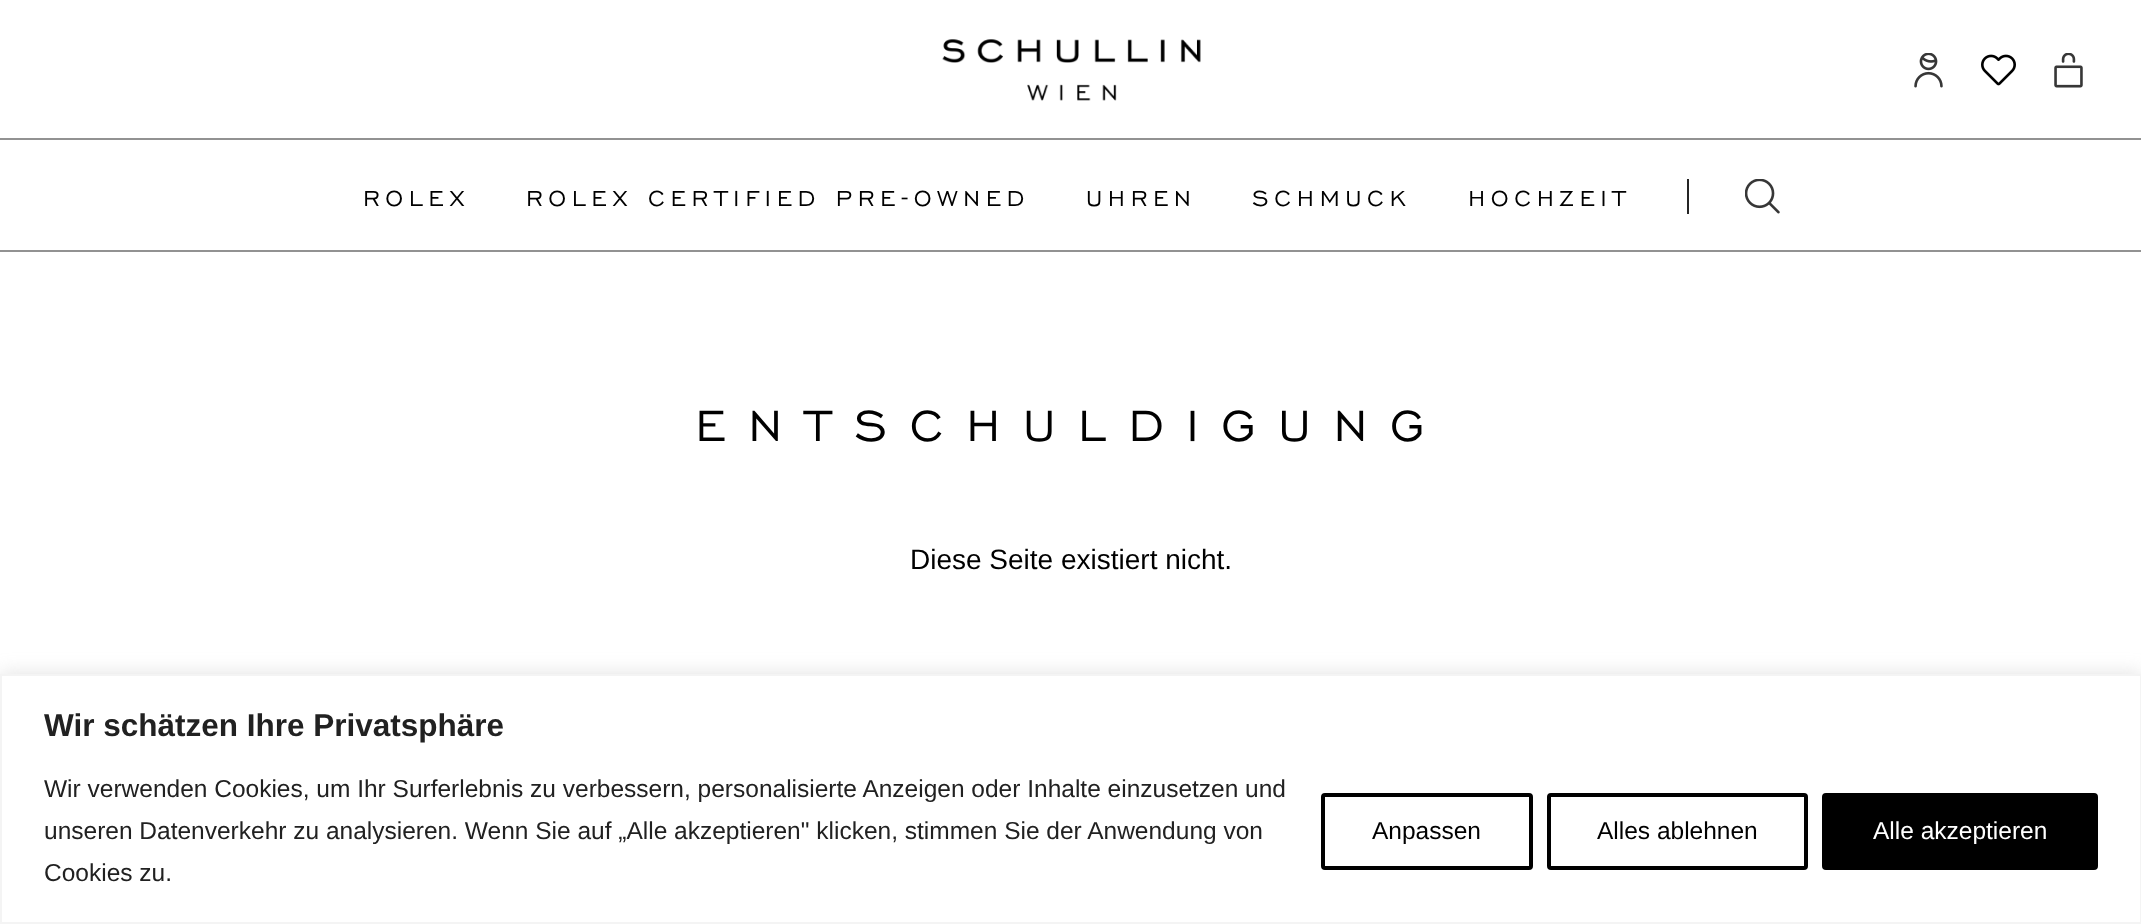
async function draw(canvas) {
	canvas.width = 2141;
	canvas.height = 924;
	const c = canvas.getContext('2d');
	c.miterLimit = 4;
	c.fontKerning = 'normal';
	async function loadImage(src) {
		const img = new Image();
		img.src = src;
		await img.decode();
		return img;
	}

	c.fillStyle = '#fff';
	c.fillRect(0, 0, 2141, 924);
	c.fillStyle = '#929292';
	c.fillRect(0, 138, 2141, 2);
	c.drawImage(await loadImage('img1.png'), 942, 39, 259, 62);
	c.drawImage(await loadImage('img2.png'), 1914, 53, 29, 35);
	c.drawImage(await loadImage('img3.png'), 1981, 54, 35, 32);
	c.drawImage(await loadImage('img4.png'), 2054, 53, 29, 35);
	c.fillRect(0, 250, 2141, 2);
	c.letterSpacing = '5.6px';
	c.font = '28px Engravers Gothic';
	c.fillStyle = '#000';
	for (const [text, x, y] of [
		['ROLEX', 363, 206],
		['ROLEX CERTIFIED PRE-OWNED', 526, 206],
		['UHREN', 1086, 206],
		['SCHMUCK', 1252, 206],
		['HOCHZEIT', 1468, 206],
	]) {
		c.fillText(text, x, y);
	}
	c.fillStyle = '#252525';
	c.fillRect(1687, 179, 2, 35);
	c.drawImage(await loadImage('img5.png'), 1745, 179, 35, 35);
	c.letterSpacing = '22.4px';
	c.font = '56px Engravers Gothic';
	c.fillStyle = '#000';
	c.fillText('ENTSCHULDIGUNG', 695, 441);
	c.letterSpacing = '0px';
	c.font = '28px Liberation Sans';
	c.fillText('Diese Seite existiert nicht.', 910, 569);
	c.fillStyle = '#acabab4d';
	c.filter = 'blur(9px)';
	c.beginPath();
	c.rect(0, 672, 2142, 250);
	c.fill();
	c.filter = 'none';
	c.fillStyle = '#fff';
	c.beginPath();
	c.rect(1, 675, 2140, 248);
	c.fill();
	c.strokeStyle = '#f4f4f4';
	c.lineWidth = 2;
	c.stroke();
	c.font = 'bold 31.5px Liberation Sans';
	c.fillStyle = '#212121';
	c.fillText('Wir schätzen Ihre Privatsphäre', 44, 736);
	c.font = '24.5px Liberation Sans';
	for (const [text, x, y] of [
		['Wir verwenden Cookies, um Ihr Surferlebnis zu verbessern, personalisierte Anzeigen oder Inhalte einzusetzen und', 44, 797],
		['unseren Datenverkehr zu analysieren. Wenn Sie auf „Alle akzeptieren" klicken, stimmen Sie der Anwendung von', 44, 839],
		['Cookies zu.', 44, 881],
	]) {
		c.fillText(text, x, y);
	}
	c.beginPath();
	c.roundRect(1323, 795, 208, 73, 2);
	c.strokeStyle = '#000';
	c.lineWidth = 4;
	c.stroke();
	c.fillStyle = '#000';
	c.fillText('Anpassen', 1372, 839);
	c.beginPath();
	c.roundRect(1549, 795, 257, 73, 2);
	c.stroke();
	c.fillText('Alles ablehnen', 1597, 839);
	c.beginPath();
	c.roundRect(1824, 795, 272, 73, 2);
	c.fill();
	c.stroke();
	c.fillStyle = '#fff';
	c.fillText('Alle akzeptieren', 1873, 839);
}

draw(document.querySelector('canvas'));
